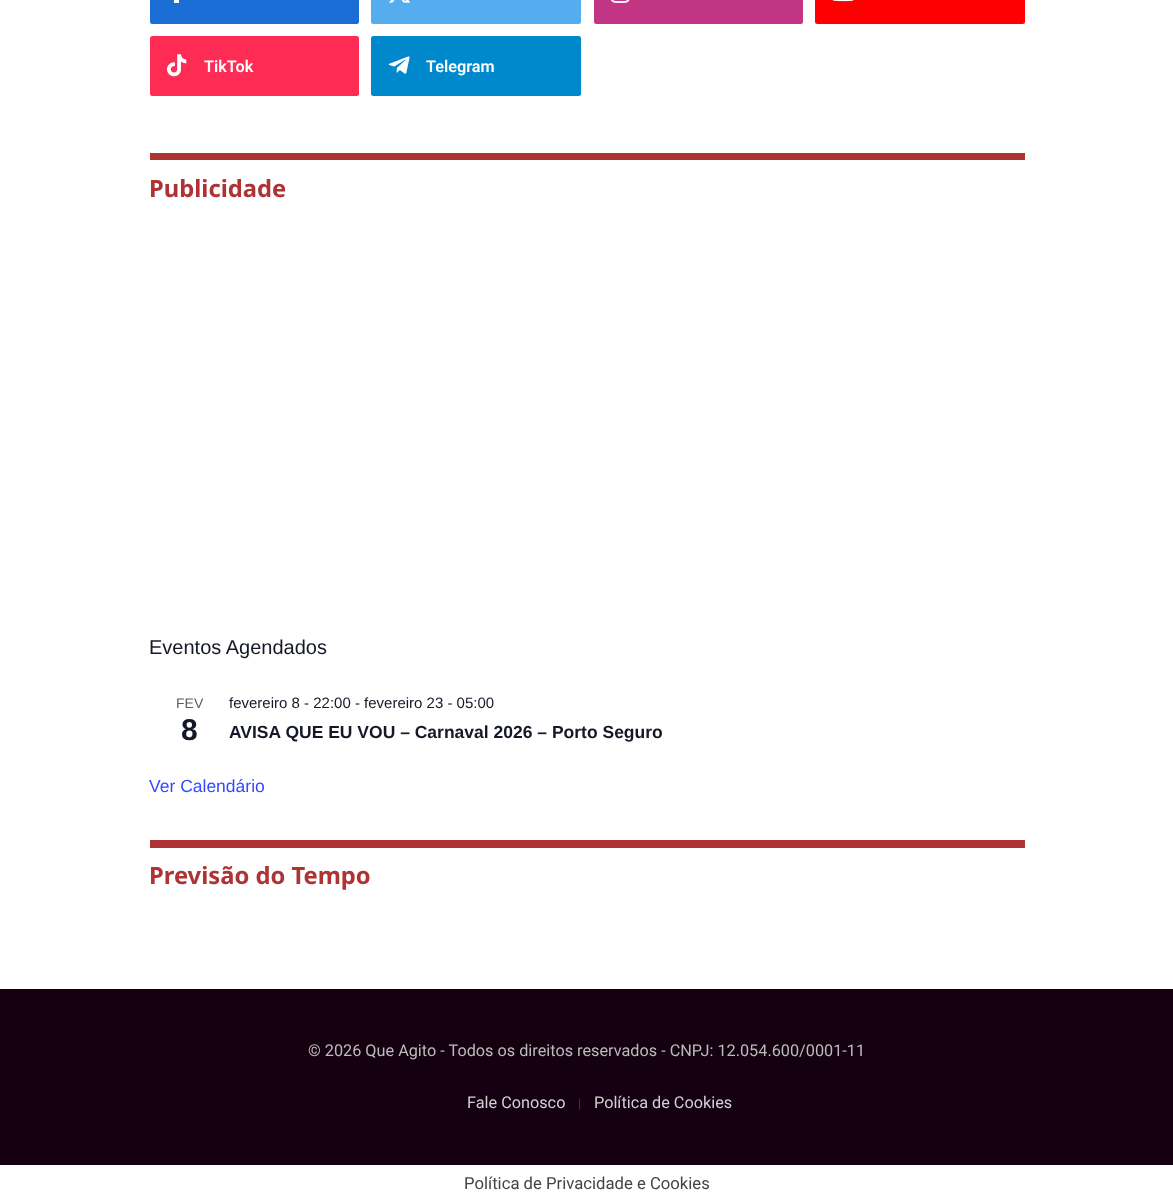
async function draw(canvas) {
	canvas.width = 1173;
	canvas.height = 1202;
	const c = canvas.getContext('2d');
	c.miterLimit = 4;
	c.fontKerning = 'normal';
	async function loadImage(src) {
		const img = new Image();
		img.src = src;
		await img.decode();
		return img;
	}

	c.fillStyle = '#fff';
	c.fillRect(0, 0, 1173, 1202);
	c.fillStyle = '#1a6dd4';
	c.beginPath();
	c.roundRect(150, -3, 209, 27, 2.5);
	c.fill();
	c.fillStyle = '#fff';
	c.fillRect(174, 0, 5, 3);
	c.fillStyle = '#55acef';
	c.beginPath();
	c.roundRect(371, -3, 210, 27, 2.5);
	c.fill();
	c.drawImage(await loadImage('img1.png'), 389, 0, 22, 3);
	c.fillStyle = '#c13584';
	c.beginPath();
	c.roundRect(594, -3, 209, 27, 2.5);
	c.fill();
	c.drawImage(await loadImage('img2.png'), 610, 0, 20, 3);
	c.fillStyle = '#f00';
	c.beginPath();
	c.roundRect(815, -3, 210, 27, 2.5);
	c.fill();
	c.drawImage(await loadImage('img3.png'), 832, 0, 22, 2);
	c.fillStyle = '#fe2c55';
	c.beginPath();
	c.roundRect(150, 36, 209, 60, 2.5);
	c.fill();
	c.drawImage(await loadImage('img4.png'), 167, 54, 20, 23);
	c.font = '600 16.25px Roboto';
	c.fillStyle = '#fff';
	c.fillText('TikTok', 204, 72);
	c.fillStyle = '#08c';
	c.beginPath();
	c.roundRect(371, 36, 210, 60, 2.5);
	c.fill();
	c.drawImage(await loadImage('img5.png'), 388, 56, 22, 18);
	c.fillStyle = '#fff';
	c.fillText('Telegram', 426, 72);
	c.fillStyle = '#ae3335';
	c.fillRect(150, 153, 875, 7);
	c.font = 'bold 23.75px Noto Sans';
	c.fillText('Publicidade', 149, 197);
	c.font = '20px Liberation Sans';
	c.fillStyle = '#141827';
	c.fillText('Eventos Agendados', 149, 654);
	c.font = '14px Liberation Sans';
	c.fillStyle = '#5d5d5d';
	c.fillText('FEV', 176, 708);
	c.font = 'bold 30px Liberation Sans';
	c.fillStyle = '#141827';
	c.fillText('8', 181, 740);
	c.font = '15px Liberation Sans';
	c.fillText('fevereiro 8 - 22:00 - fevereiro 23 - 05:00', 229, 708);
	c.font = 'bold 17.5px Liberation Sans';
	c.fillText('AVISA QUE EU VOU – Carnaval 2026 – Porto Seguro', 229, 738);
	c.font = '17.5px Liberation Sans';
	c.fillStyle = '#334aff';
	c.fillText('Ver Calendário', 149, 792);
	c.fillStyle = '#ae3335';
	c.fillRect(150, 840, 875, 8);
	c.font = 'bold 23.75px Noto Sans';
	c.fillText('Previsão do Tempo', 149, 884);
	c.fillStyle = '#140010';
	c.fillRect(0, 989, 1173, 176);
	c.font = '16.25px Roboto';
	c.fillStyle = '#bbb';
	c.fillText('© 2026 Que Agito - Todos os direitos reservados - CNPJ: 12.054.600/0001-11', 308, 1056);
	c.fillStyle = '#d1d1d1';
	c.fillText('Fale Conosco', 467, 1108);
	c.font = '13px Roboto';
	c.fillStyle = '#463843';
	c.fillText('|', 578, 1108);
	c.font = '16.25px Roboto';
	c.fillStyle = '#d1d1d1';
	c.fillText('Política de Cookies', 594, 1108);
	c.font = '16.7px Roboto';
	c.fillStyle = '#444';
	c.fillText('Política de Privacidade e Cookies', 464, 1189);
}

draw(document.querySelector('canvas'));
